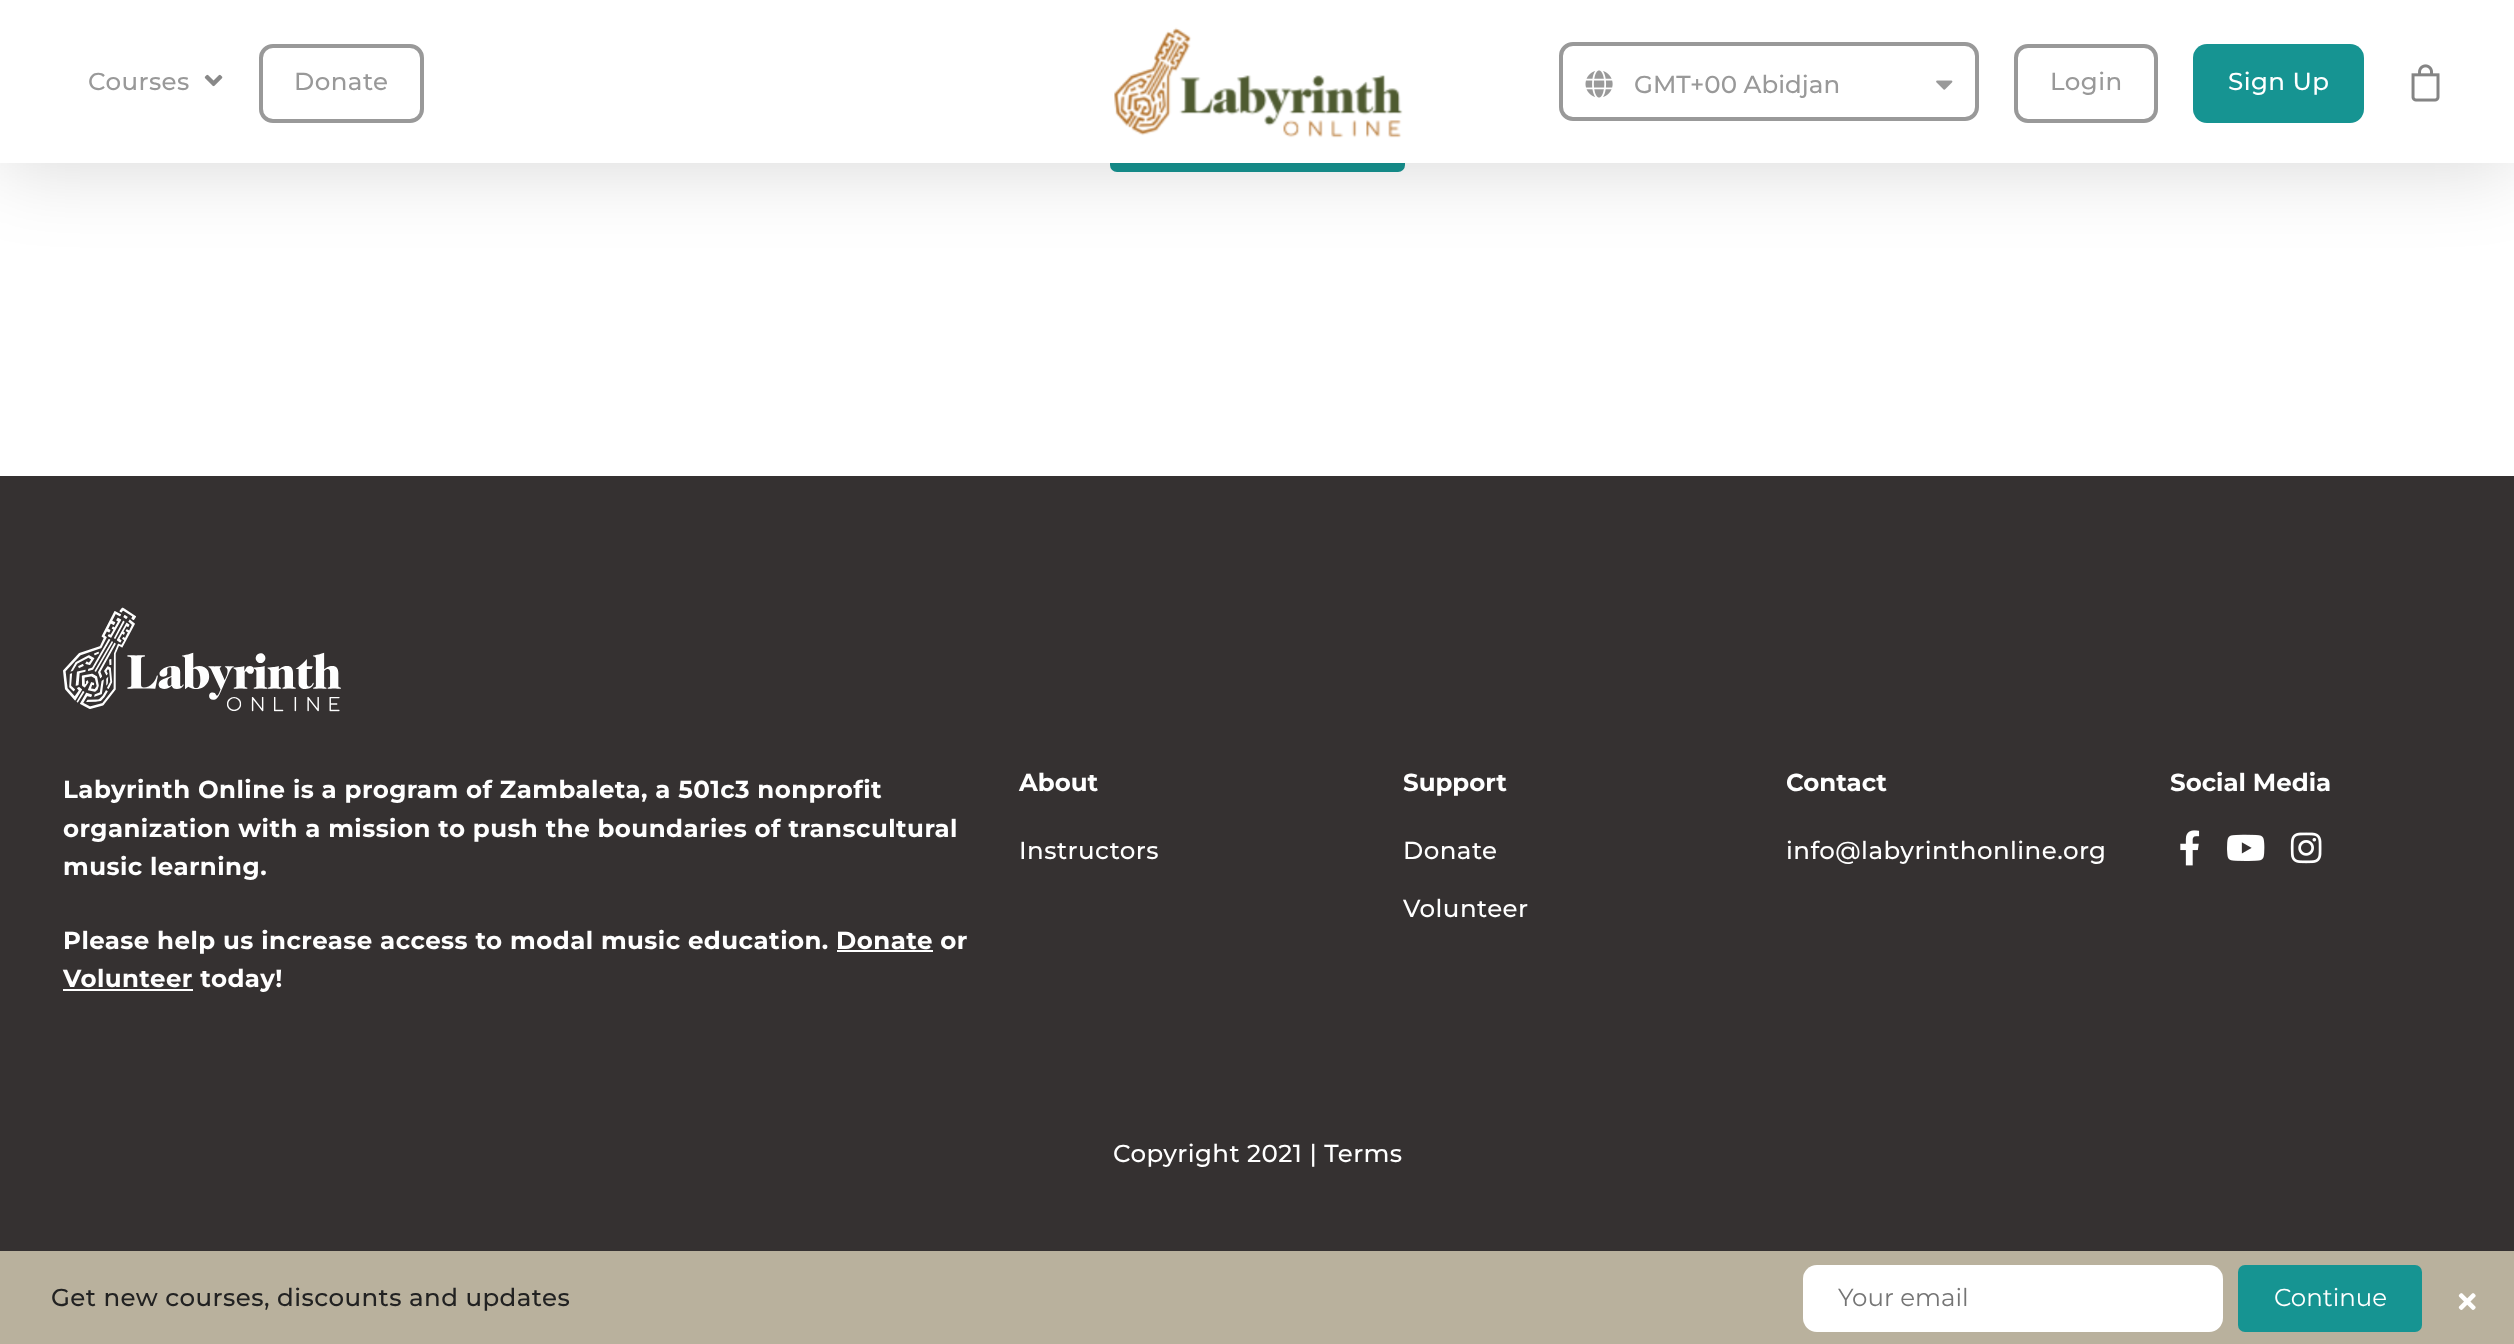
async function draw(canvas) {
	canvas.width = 2514;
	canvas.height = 1344;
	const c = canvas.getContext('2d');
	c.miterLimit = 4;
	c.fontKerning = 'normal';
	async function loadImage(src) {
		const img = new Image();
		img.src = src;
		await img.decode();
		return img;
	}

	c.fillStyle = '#fff';
	c.fillRect(0, 0, 2514, 1344);
	c.fillStyle = '#169492';
	c.beginPath();
	c.roundRect(1110, 84, 295, 88, 7);
	c.fill();
	c.fillStyle = '#00000026';
	c.filter = 'blur(39.5px)';
	c.beginPath();
	c.rect(0, 5, 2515, 163);
	c.fill();
	c.filter = 'none';
	c.fillStyle = '#fff';
	c.fillRect(0, 0, 2514, 163);
	c.drawImage(await loadImage('img1.png'), 1114, 27, 289, 111);
	c.letterSpacing = '0.45px';
	c.font = '500 24.5px Montserrat';
	c.fillStyle = '#999';
	c.fillText('Courses', 88, 90);
	c.drawImage(await loadImage('img2.png'), 204, 74, 19, 13);
	c.beginPath();
	c.roundRect(261, 46, 161, 75, 12);
	c.strokeStyle = '#999';
	c.lineWidth = 4;
	c.stroke();
	c.fillText('Donate', 294, 90);
	c.drawImage(await loadImage('img3.png'), 1585, 70, 28, 28);
	c.drawImage(await loadImage('img4.png'), 1936, 80, 17, 10);
	c.beginPath();
	c.roundRect(1561, 44, 416, 75, 12);
	c.stroke();
	c.letterSpacing = '0px';
	c.fillText('GMT+00 Abidjan', 1634, 93);
	c.beginPath();
	c.roundRect(2016, 46, 140, 75, 12);
	c.stroke();
	c.letterSpacing = '0.45px';
	c.fillText('Login', 2050, 90);
	c.fillStyle = '#169492';
	c.beginPath();
	c.roundRect(2193, 44, 171, 79, 14);
	c.fill();
	c.fillStyle = '#fff';
	c.fillText('Sign Up', 2228, 90);
	c.drawImage(await loadImage('img5.png'), 2411, 64, 29, 38);
	c.fillStyle = '#353131';
	c.fillRect(0, 476, 2514, 775);
	c.drawImage(await loadImage('img6.png'), 63, 607, 278, 105);
	c.font = 'bold 24.5px Montserrat';
	c.fillStyle = '#fff';
	for (const [text, x, y] of [
		['Labyrinth Online is a program of Zambaleta, a 501c3 nonprofit', 63, 798],
		['organization with a mission to push the boundaries of transcultural', 63, 837],
		['music learning.', 63, 875],
		['Please help us increase access to modal music education. Donate or', 63, 949],
	]) {
		c.fillText(text, x, y);
	}
	c.fillRect(837, 950, 96, 2);
	c.fillRect(63, 989, 130, 2);
	c.fillText('Volunteer today!', 63, 987);
	c.letterSpacing = '0px';
	c.fillText('About', 1019, 791);
	c.letterSpacing = '0.45px';
	c.font = '500 24.5px Montserrat';
	c.fillText('Instructors', 1019, 859);
	c.letterSpacing = '0px';
	c.font = 'bold 24.5px Montserrat';
	c.fillText('Support', 1403, 791);
	c.letterSpacing = '0.45px';
	c.font = '500 24.5px Montserrat';
	c.fillText('Donate', 1403, 859);
	c.fillText('Volunteer', 1403, 917);
	c.letterSpacing = '0px';
	c.font = 'bold 24.5px Montserrat';
	c.fillText('Contact', 1786, 791);
	c.letterSpacing = '0.45px';
	c.font = '500 24.5px Montserrat';
	c.fillText('info@labyrinthonline.org', 1786, 859);
	c.letterSpacing = '0px';
	c.font = 'bold 24.5px Montserrat';
	c.fillText('Social Media', 2170, 791);
	c.drawImage(await loadImage('img7.png'), 2180, 830, 20, 36);
	c.drawImage(await loadImage('img8.png'), 2227, 834, 38, 27);
	c.drawImage(await loadImage('img9.png'), 2290, 832, 32, 32);
	c.letterSpacing = '0.45px';
	c.font = '500 24.5px Montserrat';
	c.fillText('Copyright 2021 | Terms', 1113, 1162);
	c.fillStyle = '#b9b19d';
	c.fillRect(0, 1251, 2514, 93);
	c.fillStyle = '#222';
	c.fillText('Get new courses, discounts and updates', 51, 1306);
	c.fillStyle = '#fff';
	c.beginPath();
	c.roundRect(1803, 1265, 420, 67, 14);
	c.fill();
	c.letterSpacing = '0px';
	c.font = '24.5px Montserrat';
	c.fillStyle = '#757575';
	c.fillText('Your email', 1838, 1306);
	c.fillStyle = '#169492';
	c.beginPath();
	c.roundRect(2238, 1265, 184, 67, 7);
	c.fill();
	c.fillStyle = '#fff';
	c.fillText('Continue', 2274, 1306);
	c.drawImage(await loadImage('img10.png'), 2458, 1293, 18, 17);
}

draw(document.querySelector('canvas'));
